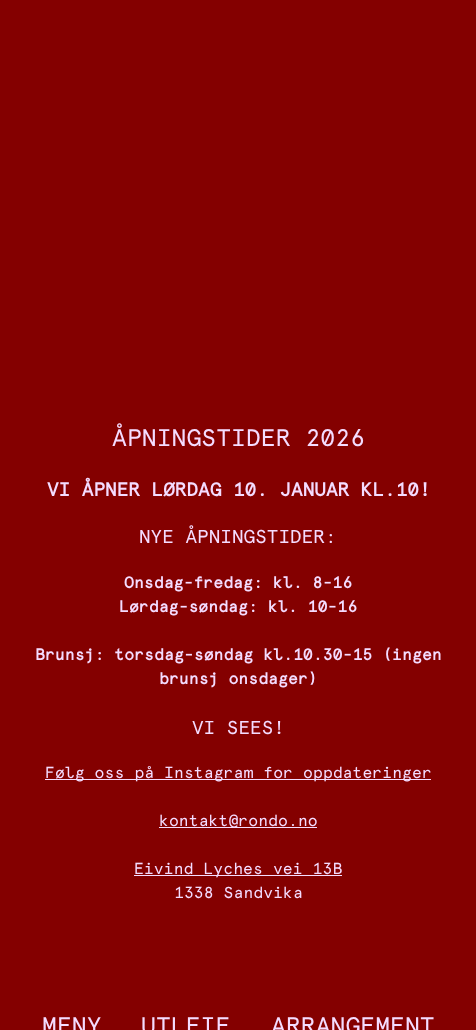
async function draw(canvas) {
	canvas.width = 476;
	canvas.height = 1030;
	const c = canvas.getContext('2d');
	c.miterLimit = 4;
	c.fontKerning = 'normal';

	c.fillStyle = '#840000';
	c.fillRect(0, 0, 476, 1030);
	c.font = '24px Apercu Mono';
	c.fillStyle = '#f4dcff';
	c.fillText('ÅPNINGSTIDER 2026', 112, 446);
	c.font = 'bold 18.75px Apercu Mono';
	c.fillText('VI ÅPNER LØRDAG 10. JANUAR KL.10!', 47, 496);
	c.font = '18.75px Apercu Mono';
	c.fillText('NYE ÅPNINGSTIDER:', 139, 543);
	c.font = 'bold 16px Apercu Mono';
	for (const [text, x, y] of [
		['Onsdag-fredag: kl. 8-16', 124, 588],
		['Lørdag-søndag: kl. 10-16', 119, 612],
		['Brunsj: torsdag-søndag kl.10.30-15 (ingen', 35, 660],
		['brunsj onsdager)', 159, 684],
	]) {
		c.fillText(text, x, y);
	}
	c.font = '18.75px Apercu Mono';
	c.fillText('VI SEES!', 192, 734);
	c.fillRect(45, 779, 386, 1);
	c.font = '16px Apercu Mono';
	c.fillText('Følg oss på Instagram for oppdateringer', 45, 778);
	c.fillRect(159, 827, 158, 1);
	c.fillText('kontakt@rondo.no', 159, 826);
	c.fillRect(134, 875, 208, 1);
	c.fillText('Eivind Lyches vei 13B', 134, 874);
	c.fillText('1338 Sandvika', 174, 898);
	c.font = '24px Apercu Mono';
	for (const [text, x, y] of [
		['MENY', 42, 1034],
		['UTLEIE', 141, 1034],
		['ARRANGEMENT', 271, 1034],
	]) {
		c.fillText(text, x, y);
	}
}

draw(document.querySelector('canvas'));
